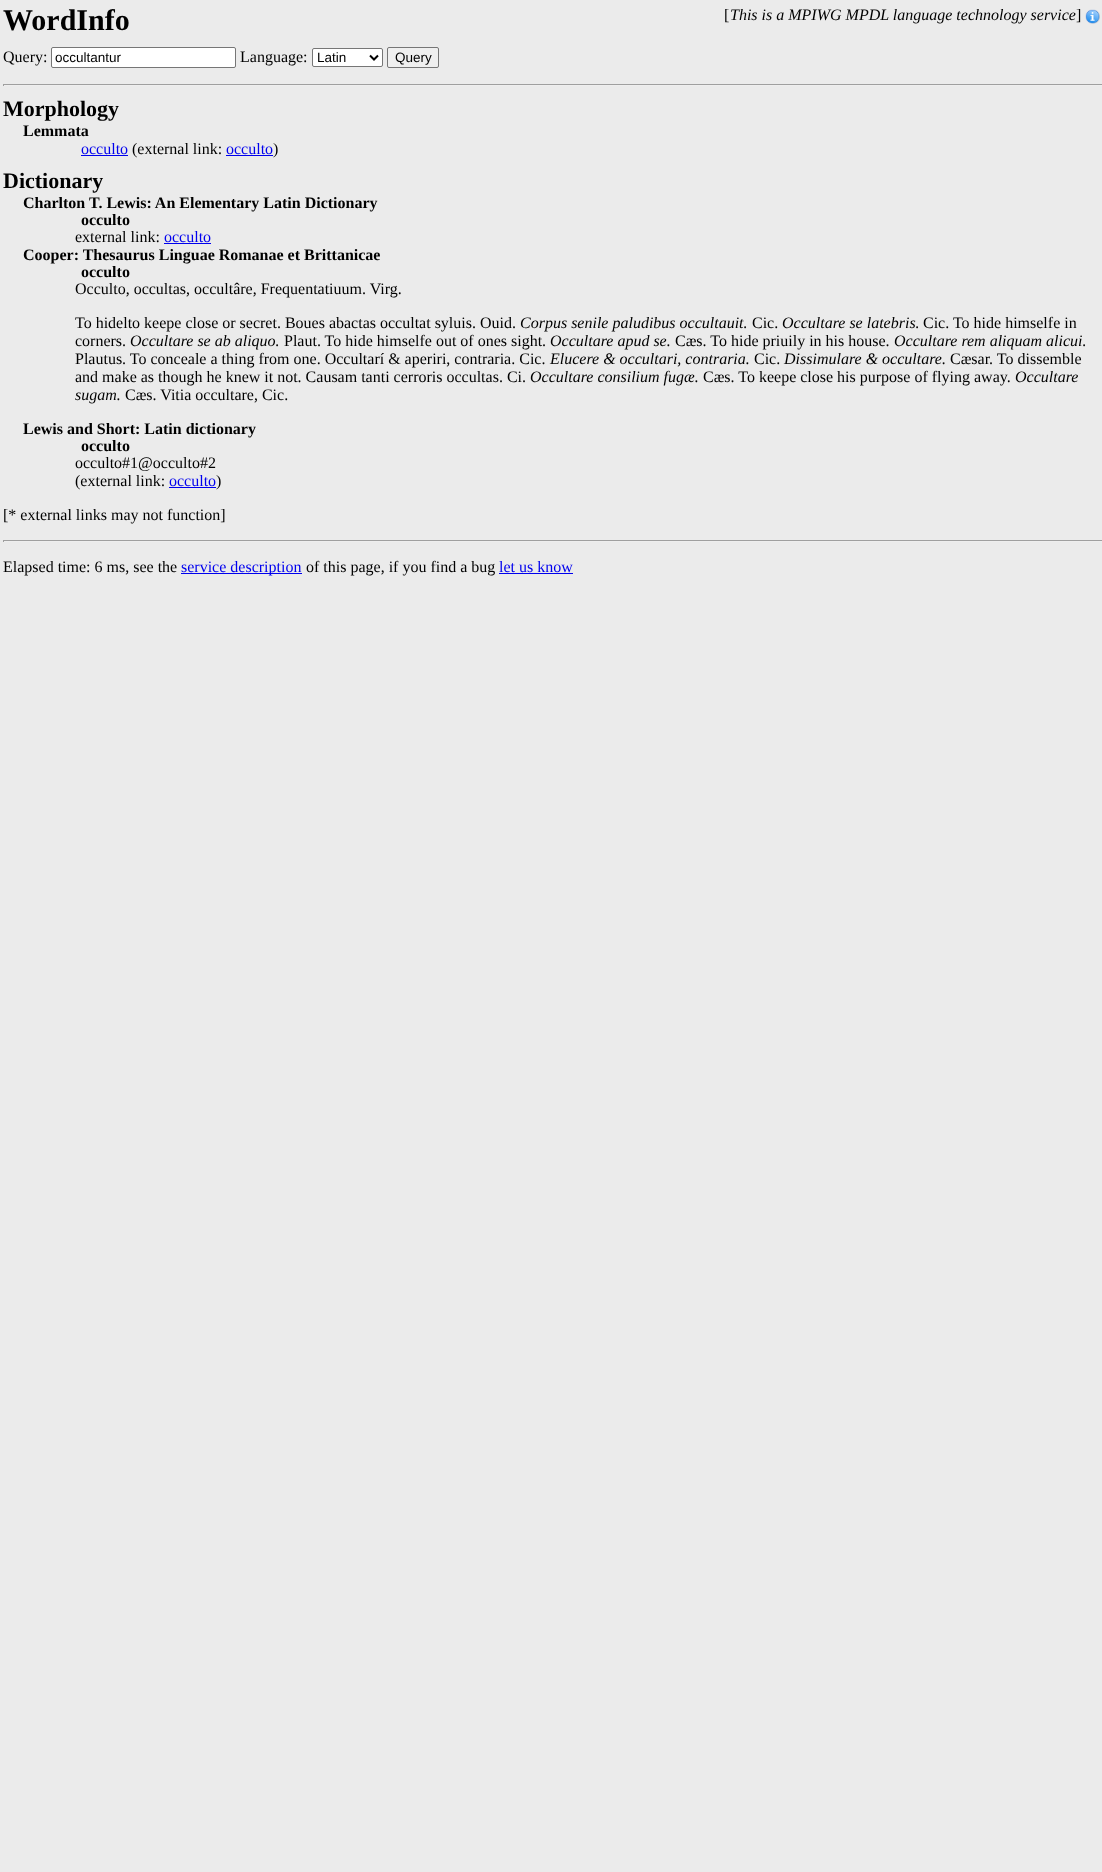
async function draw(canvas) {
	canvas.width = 1102;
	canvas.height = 1872;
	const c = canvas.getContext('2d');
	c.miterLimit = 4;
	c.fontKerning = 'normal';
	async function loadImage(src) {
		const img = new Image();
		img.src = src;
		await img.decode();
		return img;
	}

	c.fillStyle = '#ebebeb';
	c.fillRect(0, 0, 1102, 1872);
	c.font = 'bold 30px Liberation Serif';
	c.fillStyle = '#000';
	c.fillText('WordInfo', 3, 30);
	c.font = '16px Liberation Serif';
	c.fillText('[', 724, 20);
	c.font = 'italic 16px Liberation Serif';
	c.fillText('This is a MPIWG MPDL language technology service', 730, 20);
	c.font = '16px Liberation Serif';
	c.fillText(']', 1076, 20);
	c.drawImage(await loadImage('img1.png'), 1085, 9, 15, 15);
	c.fillText('Query:', 3, 62);
	c.fillStyle = '#fff';
	c.beginPath();
	c.roundRect(51.5, 47.5, 184, 20, 1.5);
	c.fill();
	c.strokeStyle = '#767676';
	c.stroke();
	c.font = '13.5px Liberation Sans';
	c.fillStyle = '#000';
	c.fillText('occultantur', 55, 62);
	c.font = '16px Liberation Serif';
	c.fillText('Language:', 240, 62);
	c.fillStyle = '#fff';
	c.beginPath();
	c.roundRect(312.5, 48.5, 70, 18, 1.5);
	c.fill();
	c.stroke();
	c.beginPath();
	c.moveTo(370, 55.5);
	c.lineTo(374, 59.5);
	c.lineTo(378, 55.5);
	c.strokeStyle = '#000';
	c.lineWidth = 2;
	c.stroke();
	c.font = '13.5px Liberation Sans';
	c.fillStyle = '#000';
	c.fillText('Latin', 317, 62);
	c.fillStyle = '#efefef';
	c.beginPath();
	c.roundRect(387.5, 47.5, 51, 20, 1.5);
	c.fill();
	c.strokeStyle = '#767676';
	c.lineWidth = 1;
	c.stroke();
	c.fillStyle = '#000';
	c.fillText('Query', 395, 62);
	for (const [x, y, w, h, color] of [
		[3, 84, 1099, 1, '#9f9f9f'],
		[3, 85, 1099, 1, '#eee'],
		[3, 84, 1, 2, '#9f9f9f'],
	]) {
		c.fillStyle = color;
		c.fillRect(x, y, w, h);
	}
	c.font = 'bold 22px Liberation Serif';
	c.fillStyle = '#000';
	c.fillText('Morphology', 3, 116);
	c.font = 'bold 16px Liberation Serif';
	c.fillText('Lemmata', 23, 136);
	c.font = '16px Liberation Serif';
	c.fillStyle = '#00e';
	c.fillText('occulto', 81, 154);
	c.fillRect(81, 155, 47, 1);
	c.fillStyle = '#000';
	c.fillText('(external link:', 132, 154);
	c.fillStyle = '#00e';
	c.fillText('occulto', 226, 154);
	c.fillRect(226, 155, 47, 1);
	c.fillStyle = '#000';
	c.fillText(')', 273, 154);
	c.font = 'bold 22px Liberation Serif';
	c.fillText('Dictionary', 3, 188);
	c.font = 'bold 16px Liberation Serif';
	c.fillText('Charlton T. Lewis: An Elementary Latin Dictionary', 23, 208);
	c.fillText('occulto', 81, 225);
	c.font = '16px Liberation Serif';
	c.fillText('external link:', 75, 242);
	c.fillStyle = '#00e';
	c.fillText('occulto', 164, 242);
	c.fillRect(164, 243, 47, 1);
	c.font = 'bold 16px Liberation Serif';
	c.fillStyle = '#000';
	c.fillText('Cooper: Thesaurus Linguae Romanae et Brittanicae', 23, 260);
	c.fillText('occulto', 81, 277);
	c.font = '16px Liberation Serif';
	c.fillText('Occulto, occultas, occultâre, Frequentatiuum. Virg.', 75, 294);
	c.fillText('To hidelto keepe close or secret. Boues abactas occultat syluis. Ouid.', 75, 328);
	c.font = 'italic 16px Liberation Serif';
	c.fillText('Corpus senile paludibus occultauit.', 520, 328);
	c.font = '16px Liberation Serif';
	c.fillText('Cic.', 752, 328);
	c.font = 'italic 16px Liberation Serif';
	c.fillText('Occultare se latebris.', 782, 328);
	c.font = '16px Liberation Serif';
	c.fillText('Cic. To hide himselfe in', 923, 328);
	c.fillText('corners.', 75, 346);
	c.font = 'italic 16px Liberation Serif';
	c.fillText('Occultare se ab aliquo.', 130, 346);
	c.font = '16px Liberation Serif';
	c.fillText('Plaut. To hide himselfe out of ones sight.', 284, 346);
	c.font = 'italic 16px Liberation Serif';
	c.fillText('Occultare apud se.', 550, 346);
	c.font = '16px Liberation Serif';
	c.fillText('Cæs. To hide priuily in his house.', 675, 346);
	c.font = 'italic 16px Liberation Serif';
	c.fillText('Occultare rem aliquam alicui.', 894, 346);
	c.font = '16px Liberation Serif';
	c.fillText('Plautus. To conceale a thing from one. Occultarí & aperiri, contraria. Cic.', 75, 364);
	c.font = 'italic 16px Liberation Serif';
	c.fillText('Elucere & occultari, contraria.', 550, 364);
	c.font = '16px Liberation Serif';
	c.fillText('Cic.', 754, 364);
	c.font = 'italic 16px Liberation Serif';
	c.fillText('Dissimulare & occultare.', 784, 364);
	c.font = '16px Liberation Serif';
	c.fillText('Cæsar. To dissemble', 950, 364);
	c.fillText('and make as though he knew it not. Causam tanti cerroris occultas. Ci.', 75, 382);
	c.font = 'italic 16px Liberation Serif';
	c.fillText('Occultare consilium fugæ.', 530, 382);
	c.font = '16px Liberation Serif';
	c.fillText('Cæs. To keepe close his purpose of flying away.', 703, 382);
	c.font = 'italic 16px Liberation Serif';
	c.fillText('Occultare', 1015, 382);
	c.fillText('sugam.', 75, 400);
	c.font = '16px Liberation Serif';
	c.fillText('Cæs. Vitia occultare, Cic.', 125, 400);
	c.font = 'bold 16px Liberation Serif';
	c.fillText('Lewis and Short: Latin dictionary', 23, 434);
	c.fillText('occulto', 81, 451);
	c.font = '16px Liberation Serif';
	c.fillText('occulto#1@occulto#2', 75, 468);
	c.fillText('(external link:', 75, 486);
	c.fillStyle = '#00e';
	c.fillText('occulto', 169, 486);
	c.fillRect(169, 487, 47, 1);
	c.fillStyle = '#000';
	c.fillText(')', 216, 486);
	c.fillText('[* external links may not function]', 3, 520);
	for (const [x, y, w, h, color] of [
		[3, 540, 1099, 1, '#9f9f9f'],
		[3, 541, 1099, 1, '#eee'],
		[3, 540, 1, 2, '#9f9f9f'],
	]) {
		c.fillStyle = color;
		c.fillRect(x, y, w, h);
	}
	c.fillStyle = '#000';
	c.fillText('Elapsed time: 6 ms, see the', 3, 572);
	c.fillStyle = '#00e';
	c.fillRect(181, 573, 121, 1);
	c.fillText('service description', 181, 572);
	c.fillStyle = '#000';
	c.fillText('of this page, if you find a bug', 306, 572);
	c.fillStyle = '#00e';
	c.fillText('let us know', 499, 572);
	c.fillRect(499, 573, 74, 1);
}

draw(document.querySelector('canvas'));
